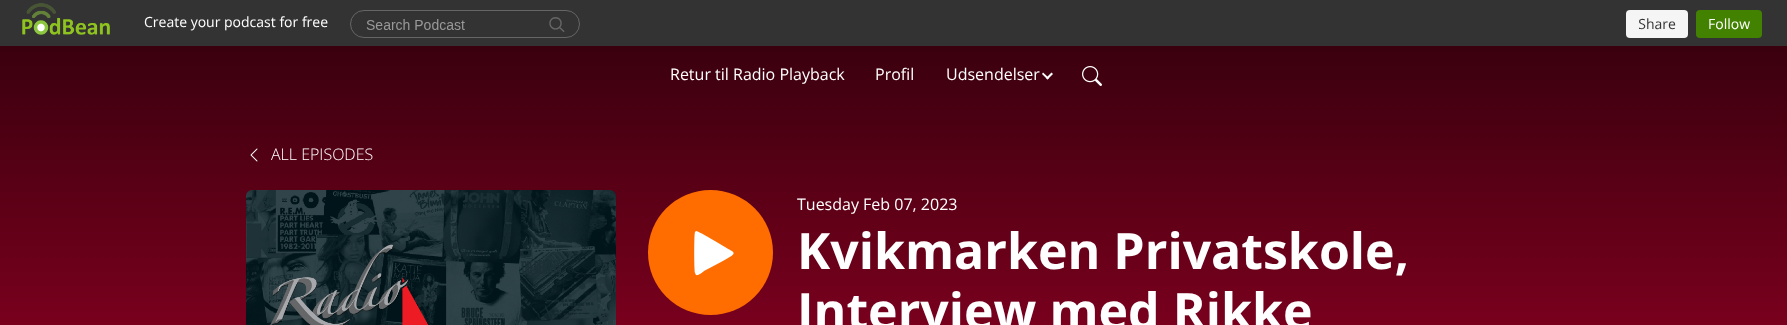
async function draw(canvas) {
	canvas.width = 1787;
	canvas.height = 325;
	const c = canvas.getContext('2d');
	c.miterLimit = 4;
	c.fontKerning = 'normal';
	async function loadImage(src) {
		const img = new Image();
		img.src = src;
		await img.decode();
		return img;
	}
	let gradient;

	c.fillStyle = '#fff';
	c.fillRect(0, 0, 1787, 325);
	c.fillStyle = '#333';
	c.fillRect(0, 0, 1787, 46);
	c.drawImage(await loadImage('img1.png'), 22, 3, 1740, 35);
	gradient = c.createLinearGradient(894, 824, 894, 46);
	gradient.addColorStop(0, '#e80039');
	gradient.addColorStop(1, '#3a000e');
	c.fillStyle = gradient;
	c.fillRect(0, 46, 1787, 279);
	c.font = '16px Open Sans';
	c.fillStyle = '#fff';
	for (const [text, x, y] of [
		['Retur til Radio Playback', 670, 80],
		['Profil', 875, 80],
		['Udsendelser', 946, 80],
	]) {
		c.fillText(text, x, y);
	}
	c.beginPath();
	c.moveTo(1051.5, 72.5);
	c.lineTo(1053, 74);
	c.lineTo(1047.5, 79.5);
	c.lineTo(1046, 78);
	c.closePath();
	c.fill();
	c.beginPath();
	c.moveTo(1043, 72.5);
	c.lineTo(1049, 78);
	c.lineTo(1047.5, 79.5);
	c.lineTo(1042, 74);
	c.closePath();
	c.fill();
	c.drawImage(await loadImage('img2.png'), 1082, 66, 20, 20);
	c.drawImage(await loadImage('img3.png'), 250, 148, 8, 14);
	c.font = '300 16px Open Sans';
	c.fillText('ALL EPISODES', 271, 160);
	c.drawImage(await loadImage('img4.png'), 246, 190, 370, 135);
	c.fillStyle = '#ff6d00';
	c.beginPath();
	c.arc(710.5, 252.5, 62.5, 0, 2 * Math.PI);
	c.fill();
	c.fillStyle = '#fff';
	c.beginPath();
	c.moveTo(732, 251);
	c.bezierCurveTo(728, 249, 699, 231, 696, 231);
	c.lineTo(695, 232);
	c.bezierCurveTo(694, 233, 694, 269, 695, 273);
	c.lineTo(696, 275);
	c.bezierCurveTo(698, 276, 703, 272, 704, 271);
	c.lineTo(721, 262);
	c.bezierCurveTo(730, 257, 737, 254, 732, 251);
	c.closePath();
	c.fill();
	c.font = '16px Open Sans';
	c.fillText('Tuesday Feb 07, 2023', 797, 210);
	c.font = 'bold 50px Open Sans';
	c.fillText('Kvikmarken Privatskole,', 797, 269);
	c.fillText('Interview med Rikke', 797, 329);
}

draw(document.querySelector('canvas'));
